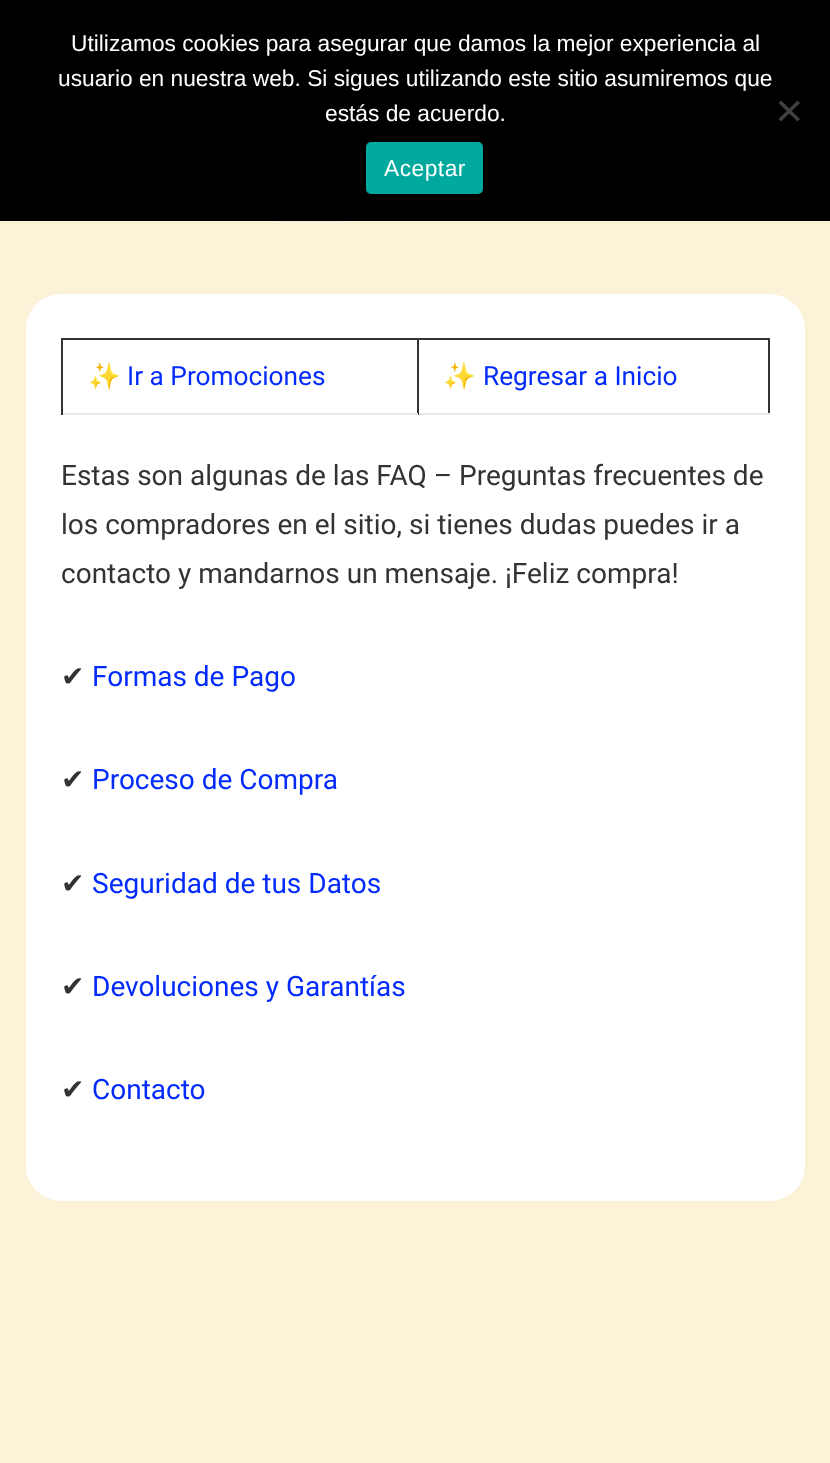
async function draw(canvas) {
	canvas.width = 830;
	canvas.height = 1463;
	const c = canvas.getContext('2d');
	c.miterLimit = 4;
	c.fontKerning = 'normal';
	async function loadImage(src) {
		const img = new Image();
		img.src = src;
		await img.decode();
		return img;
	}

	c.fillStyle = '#fcf2d8';
	c.fillRect(0, 0, 830, 1463);
	c.fillStyle = '#000';
	c.fillRect(0, 0, 830, 221);
	c.font = '22.75px Liberation Sans';
	c.fillStyle = '#fff';
	for (const [text, x, y] of [
		['Utilizamos cookies para asegurar que damos la mejor experiencia al', 71, 51],
		['usuario en nuestra web. Si sigues utilizando este sitio asumiremos que', 58, 86],
		['estás de acuerdo.', 325, 121],
	]) {
		c.fillText(text, x, y);
	}
	c.fillStyle = '#404040';
	c.beginPath();
	c.moveTo(797.5, 100.5);
	c.lineTo(800, 103);
	c.lineTo(781, 121.5);
	c.lineTo(778.5, 119);
	c.closePath();
	c.fill();
	c.beginPath();
	c.moveTo(778.5, 103);
	c.lineTo(781, 100.5);
	c.lineTo(800, 119);
	c.lineTo(797.5, 121.5);
	c.closePath();
	c.fill();
	c.fillStyle = '#00a99d';
	c.beginPath();
	c.roundRect(366, 142, 117, 52, 5);
	c.fill();
	c.letterSpacing = '0.5px';
	c.fillStyle = '#fff';
	c.fillText('Aceptar', 384, 176);
	c.drawImage(await loadImage('img1.png'), 274, 221, 73, 2);
	c.beginPath();
	c.roundRect(26, 294, 779, 907, 35);
	c.fill();
	for (const [x, y, w, h, color] of [
		[417, 338, 353, 2, '#333'],
		[768, 338, 2, 77, '#333'],
		[417, 413, 353, 2, '#e8e8e8'],
		[417, 338, 2, 77, '#333'],
		[61, 338, 357, 2, '#333'],
		[61, 413, 357, 2, '#e8e8e8'],
		[61, 338, 2, 77, '#333'],
	]) {
		c.fillStyle = color;
		c.fillRect(x, y, w, h);
	}
	c.letterSpacing = '0px';
	c.font = '26.25px Noto Color Emoji';
	c.fillText('✨', 88, 385);
	c.font = '26.25px Roboto';
	c.fillStyle = '#032bfb';
	c.fillText('Ir a Promociones', 127, 385);
	c.font = '26.25px Noto Color Emoji';
	c.fillStyle = '#333';
	c.fillText('✨', 443, 385);
	c.font = '26.25px Roboto';
	c.fillStyle = '#032bfb';
	c.fillText('Regresar a Inicio', 483, 385);
	c.font = '28px Roboto';
	c.fillStyle = '#333';
	for (const [text, x, y] of [
		['Estas son algunas de las FAQ – Preguntas frecuentes de', 61, 485],
		['los compradores en el sitio, si tienes dudas puedes ir a', 61, 534],
		['contacto y mandarnos un mensaje. ¡Feliz compra!', 61, 583],
	]) {
		c.fillText(text, x, y);
	}
	c.font = '28px DejaVu Sans';
	c.fillText('✔', 61, 686);
	c.font = '28px Roboto';
	c.fillStyle = '#032bfb';
	c.fillText('Formas de Pago', 92, 686);
	c.font = '28px DejaVu Sans';
	c.fillStyle = '#333';
	c.fillText('✔', 61, 789);
	c.font = '28px Roboto';
	c.fillStyle = '#032bfb';
	c.fillText('Proceso de Compra', 92, 789);
	c.font = '28px DejaVu Sans';
	c.fillStyle = '#333';
	c.fillText('✔', 61, 893);
	c.font = '28px Roboto';
	c.fillStyle = '#032bfb';
	c.fillText('Seguridad de tus Datos', 92, 893);
	c.font = '28px DejaVu Sans';
	c.fillStyle = '#333';
	c.fillText('✔', 61, 996);
	c.font = '28px Roboto';
	c.fillStyle = '#032bfb';
	c.fillText('Devoluciones y Garantías', 92, 996);
	c.font = '28px DejaVu Sans';
	c.fillStyle = '#333';
	c.fillText('✔', 61, 1099);
	c.font = '28px Roboto';
	c.fillStyle = '#032bfb';
	c.fillText('Contacto', 92, 1099);
}

draw(document.querySelector('canvas'));
